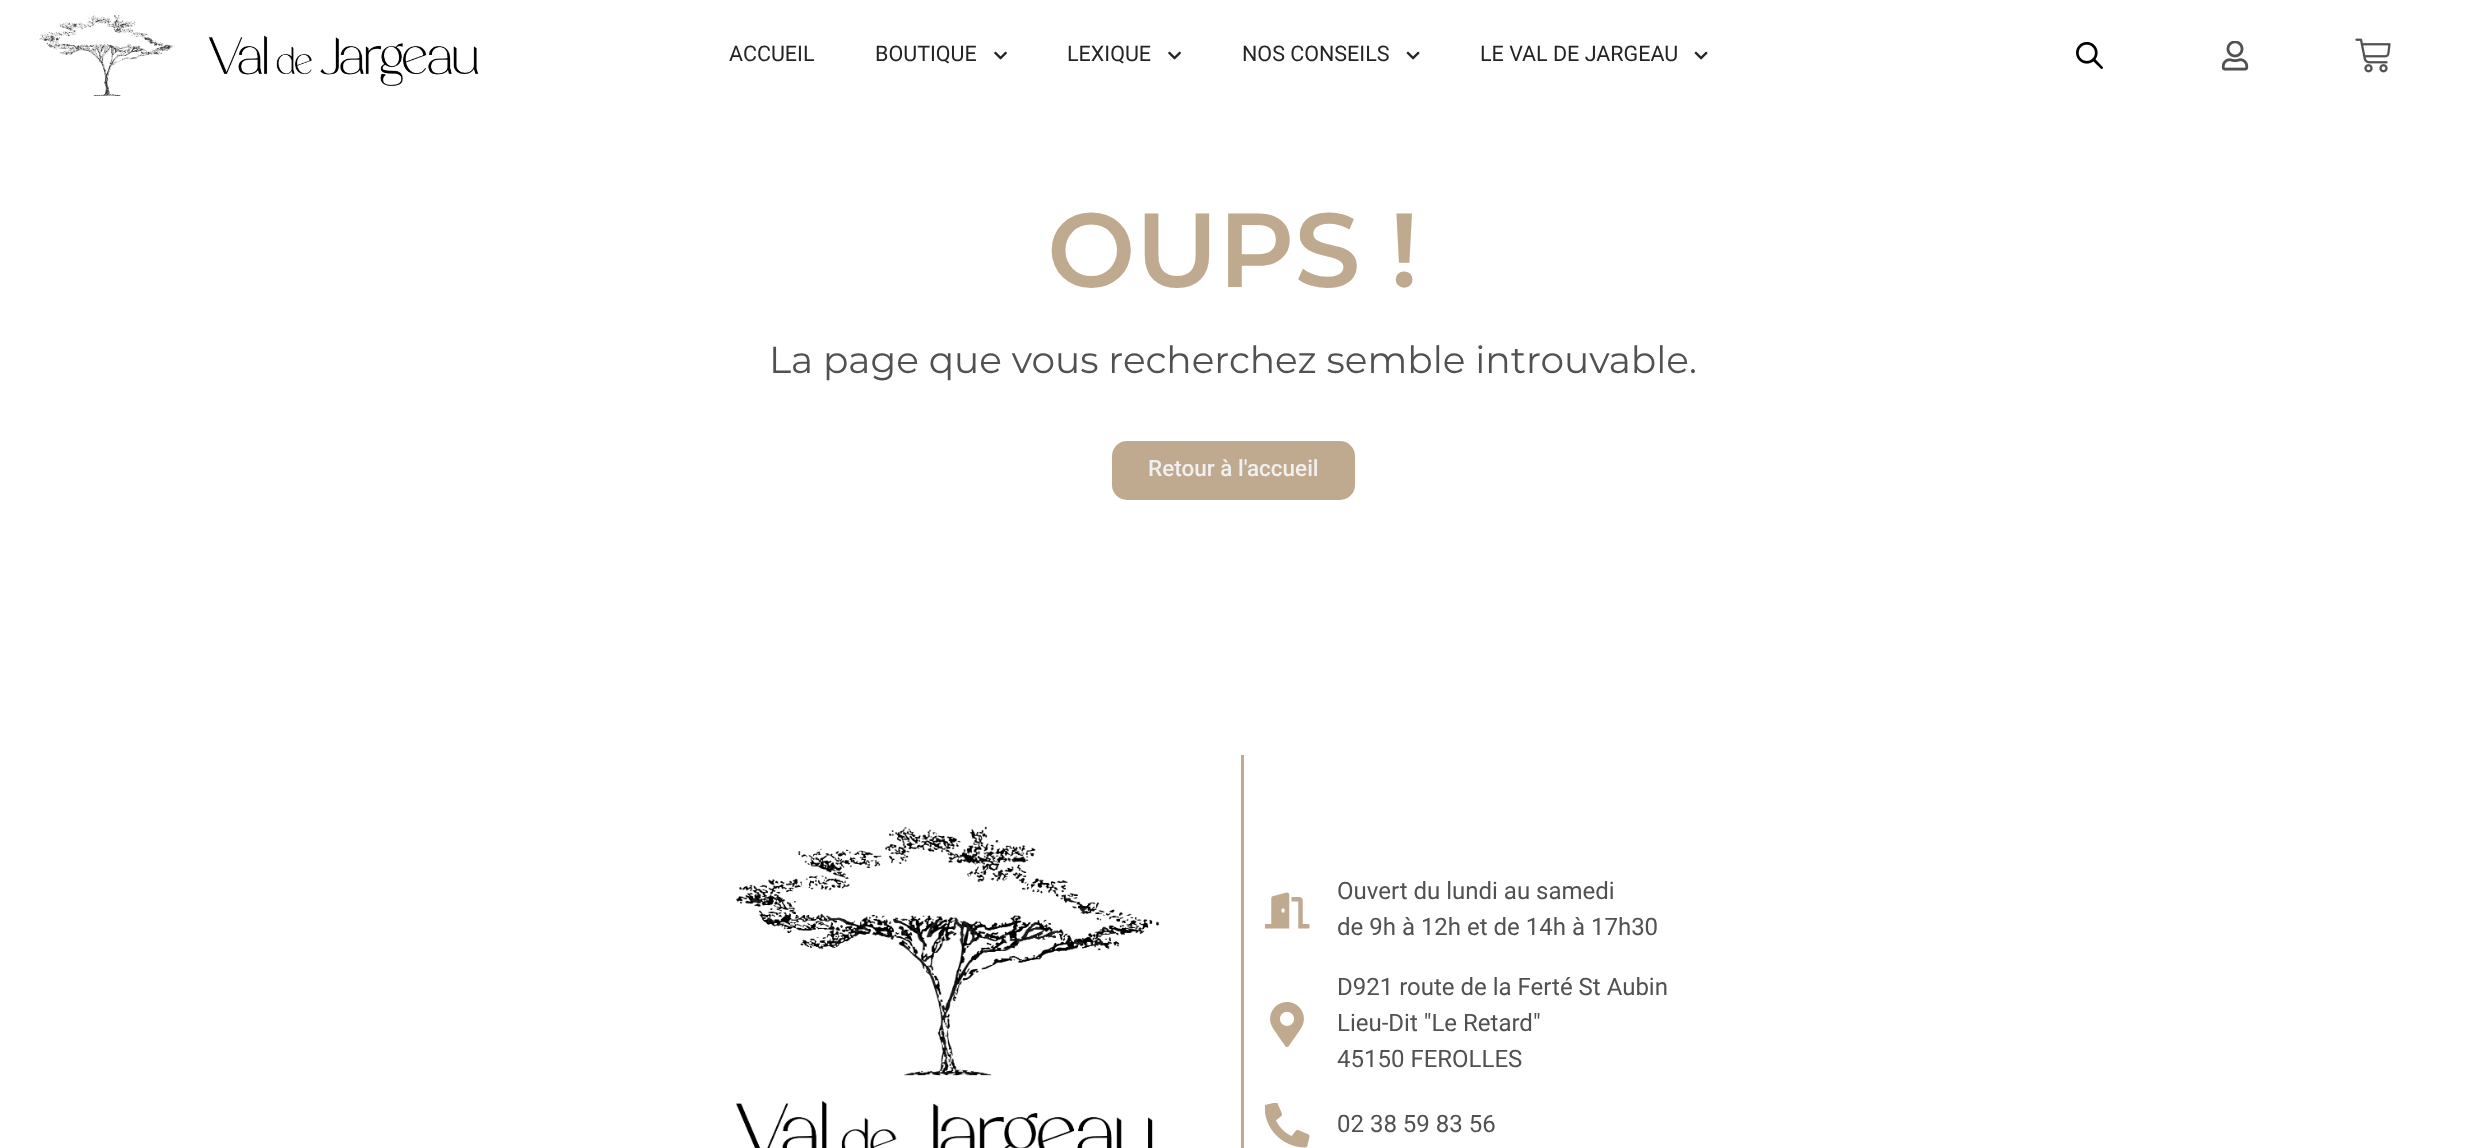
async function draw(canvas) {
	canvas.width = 2465;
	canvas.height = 1148;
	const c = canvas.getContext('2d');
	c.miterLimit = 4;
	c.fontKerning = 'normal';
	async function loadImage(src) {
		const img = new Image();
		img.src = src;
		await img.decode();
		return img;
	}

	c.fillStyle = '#fff';
	c.fillRect(0, 0, 2465, 1148);
	c.drawImage(await loadImage('img1.png'), 39, 15, 440, 81);
	c.font = '21.5px Roboto';
	c.fillStyle = '#242424';
	c.fillText('ACCUEIL', 729, 61);
	c.fillText('BOUTIQUE', 875, 61);
	c.drawImage(await loadImage('img2.png'), 994, 51, 13, 9);
	c.fillText('LEXIQUE', 1067, 61);
	c.drawImage(await loadImage('img2.png'), 1168, 51, 13, 9);
	c.fillText('NOS CONSEILS', 1242, 61);
	c.drawImage(await loadImage('img3.png'), 1406, 51, 14, 9);
	c.fillText('LE VAL DE JARGEAU', 1480, 61);
	c.drawImage(await loadImage('img3.png'), 1694, 51, 14, 9);
	c.drawImage(await loadImage('img4.png'), 2076, 42, 27, 27);
	c.drawImage(await loadImage('img5.png'), 2221, 41, 28, 30);
	c.drawImage(await loadImage('img6.png'), 2355, 38, 36, 35);
	c.font = '600 105px Montserrat';
	c.fillStyle = '#bfaa8f';
	c.fillText('OUPS !', 1047, 287);
	c.font = '37.5px Montserrat';
	c.fillStyle = '#515151';
	c.fillText('La page que vous recherchez semble introuvable.', 769, 373);
	c.fillStyle = '#bfaa8f';
	c.beginPath();
	c.roundRect(1112, 441, 243, 59, 15);
	c.fill();
	c.font = '500 22.5px Roboto';
	c.fillStyle = '#f0f0f0';
	c.fillText('Retour à l\'accueil', 1148, 476);
	c.drawImage(await loadImage('img7.png'), 735, 826, 425, 322);
	c.fillStyle = '#bfaa8f';
	c.fillRect(1241, 755, 3, 393);
	c.drawImage(await loadImage('img8.png'), 1265, 892, 45, 37);
	c.font = '24px Roboto';
	c.fillStyle = '#515151';
	c.fillText('Ouvert du lundi au samedi', 1337, 899);
	c.fillText('de 9h à 12h et de 14h à 17h30', 1337, 935);
	c.drawImage(await loadImage('img9.png'), 1270, 1002, 34, 45);
	for (const [text, x, y] of [
		['D921 route de la Ferté St Aubin', 1337, 995],
		['Lieu-Dit "Le Retard"', 1337, 1031],
		['45150 FEROLLES', 1337, 1067],
	]) {
		c.fillText(text, x, y);
	}
	c.drawImage(await loadImage('img10.png'), 1265, 1103, 45, 45);
	c.fillText('02 38 59 83 56', 1337, 1132);
}

draw(document.querySelector('canvas'));
